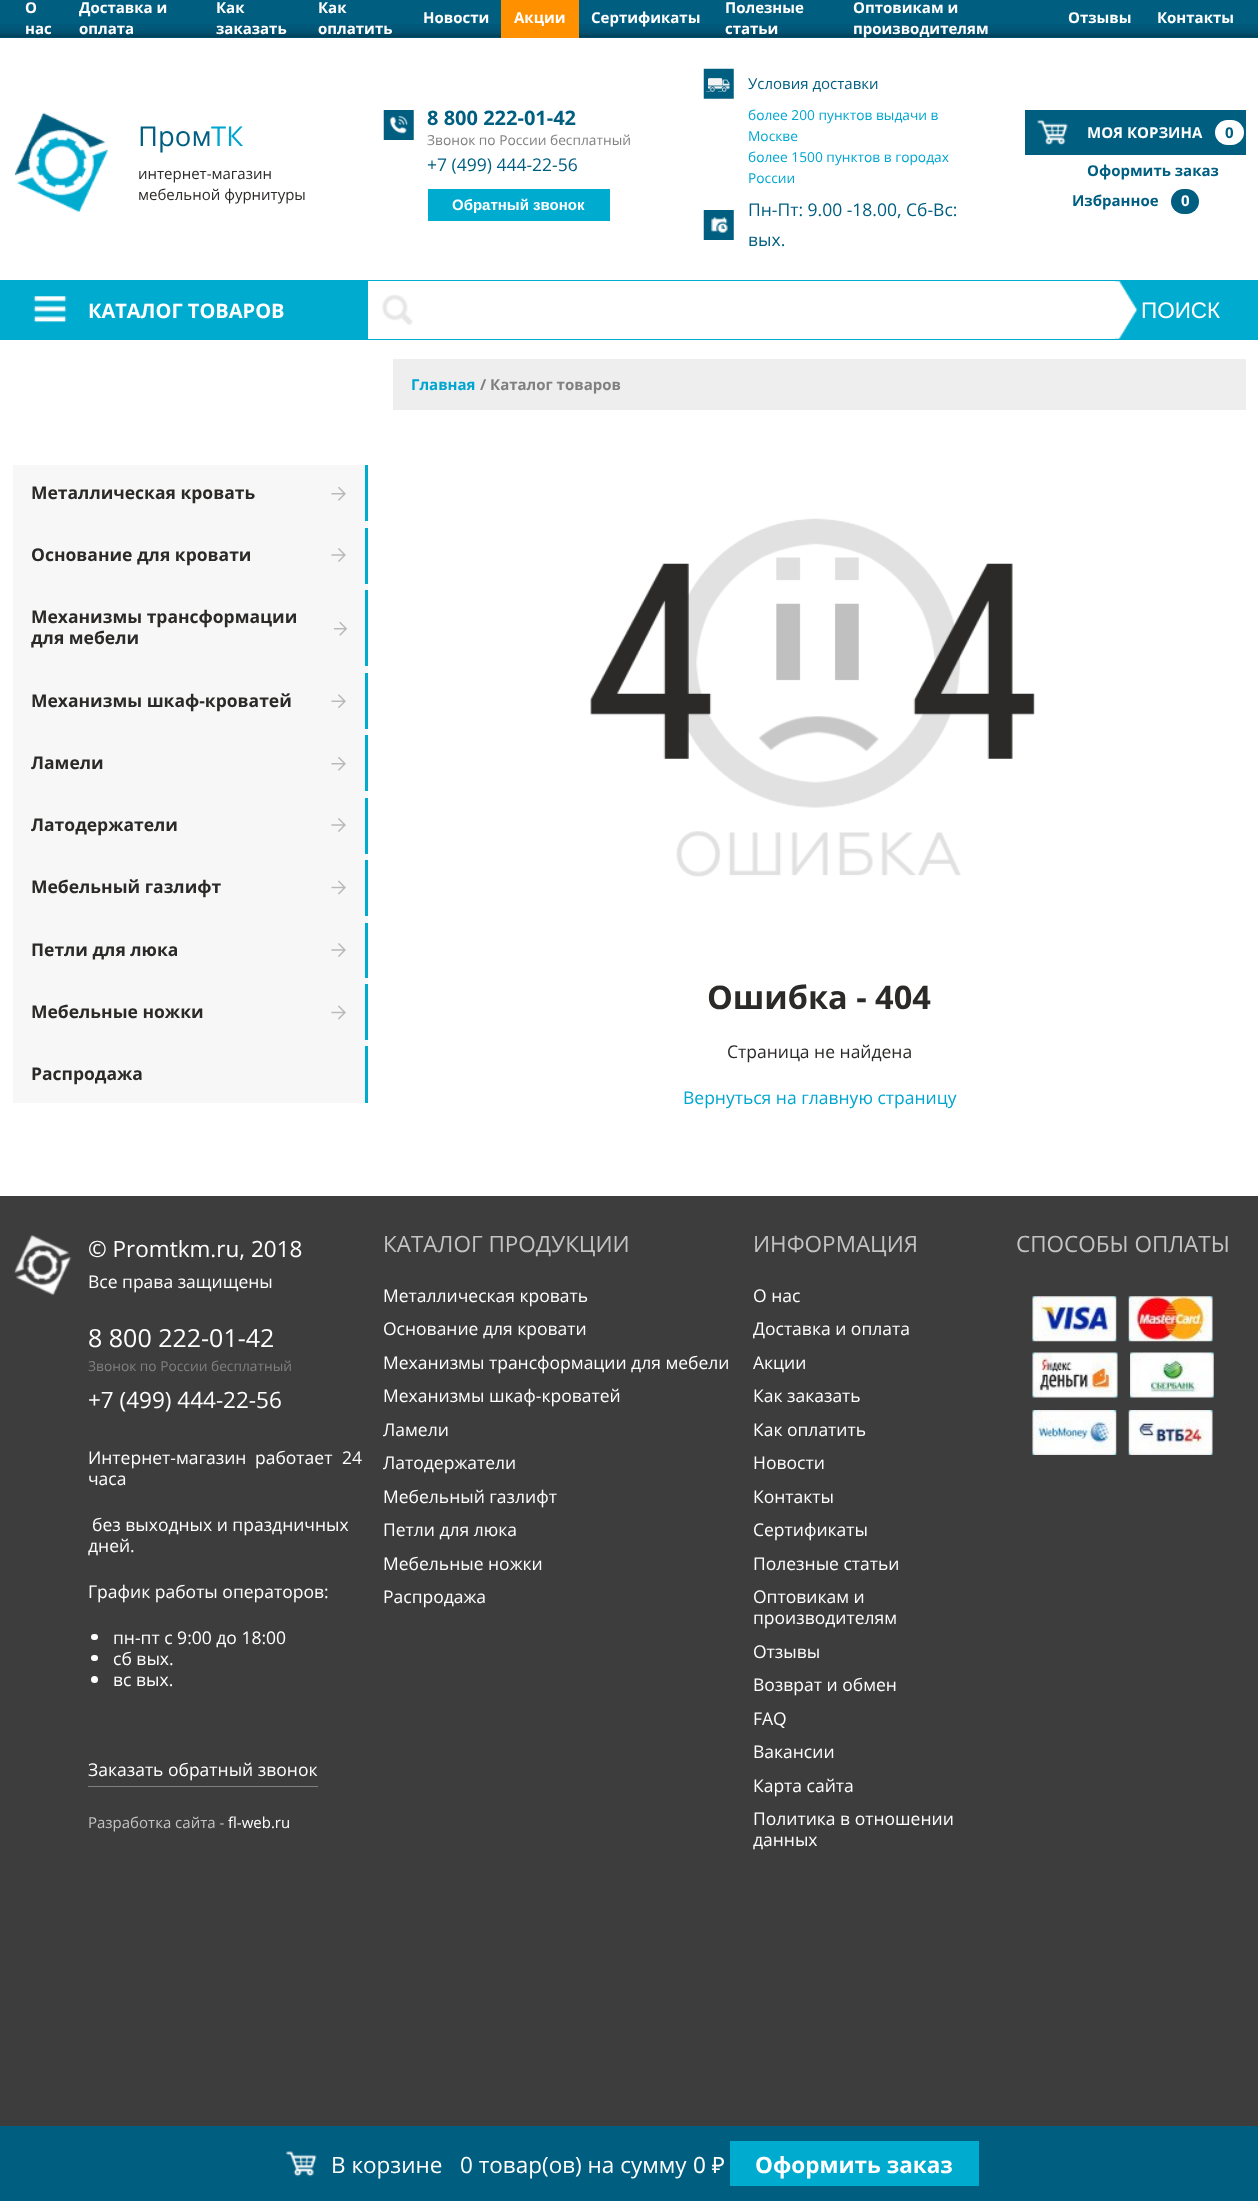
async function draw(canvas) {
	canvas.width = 1258;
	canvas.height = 2201;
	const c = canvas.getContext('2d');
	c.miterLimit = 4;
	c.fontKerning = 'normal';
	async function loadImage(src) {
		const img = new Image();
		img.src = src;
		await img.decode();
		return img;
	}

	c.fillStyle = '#3d3d3d';
	c.fillRect(0, 0, 1258, 2201);
	c.fillStyle = '#fff';
	c.fillRect(0, 38, 1258, 1158);
	c.fillStyle = '#005e80';
	c.fillRect(0, 0, 1258, 38);
	c.drawImage(await loadImage('img1.png'), 0, 24, 1258, 14);
	c.font = 'bold 15px Open Sans';
	c.fillStyle = '#fff';
	for (const [text, x, y] of [
		['О', 25, 13],
		['нас', 25, 34],
		['Доставка и', 79, 13],
		['оплата', 79, 34],
		['Как', 216, 13],
		['заказать', 216, 34],
		['Как', 318, 13],
		['оплатить', 318, 34],
		['Новости', 423, 23],
	]) {
		c.fillText(text, x, y);
	}
	c.fillStyle = '#ff9000';
	c.fillRect(501, 0, 78, 38);
	c.fillStyle = '#fff';
	for (const [text, x, y] of [
		['Акции', 514, 23],
		['Сертификаты', 591, 23],
		['Полезные', 725, 13],
		['статьи', 725, 34],
		['Оптовикам и', 853, 13],
		['производителям', 853, 34],
		['Отзывы', 1068, 23],
		['Контакты', 1157, 23],
	]) {
		c.fillText(text, x, y);
	}
	c.drawImage(await loadImage('img2.png'), 14, 112, 94, 101);
	c.font = '27.5px Open Sans';
	c.fillStyle = '#005e80';
	c.fillText('Пром', 138, 146);
	c.fillStyle = '#00a6d0';
	c.fillText('ТК', 211, 146);
	c.font = '15px Open Sans';
	c.fillStyle = '#2b2a29';
	c.fillText('интернет-магазин', 138, 179);
	c.fillText('мебельной фурнитуры', 138, 200);
	c.drawImage(await loadImage('img3.png'), 383, 110, 31, 30);
	c.font = 'bold 20px Open Sans';
	c.fillStyle = '#005e80';
	c.fillText('8 800 222-01-42', 427, 125);
	c.font = '13.75px Open Sans';
	c.fillStyle = '#808080';
	c.fillText('Звонок по России бесплатный', 427, 145);
	c.font = '17.5px Open Sans';
	c.fillStyle = '#005e80';
	c.fillText('+7 (499) 444-22-56', 427, 171);
	c.fillStyle = '#00abd0';
	c.fillRect(428, 189, 182, 32);
	c.font = 'bold 15px Liberation Sans';
	c.fillStyle = '#fff';
	c.fillText('Обратный звонок', 452, 210);
	c.drawImage(await loadImage('img4.png'), 703, 68, 31, 31);
	c.font = '15px Open Sans';
	c.fillStyle = '#005e80';
	c.fillText('Условия доставки', 748, 89);
	c.font = '13.75px Open Sans';
	c.fillStyle = '#00a6d0';
	for (const [text, x, y] of [
		['более 200 пунктов выдачи в', 748, 120],
		['Москве', 748, 141],
		['более 1500 пунктов в городах', 748, 162],
		['России', 748, 183],
	]) {
		c.fillText(text, x, y);
	}
	c.drawImage(await loadImage('img5.png'), 703, 210, 31, 30);
	c.font = '17.5px Open Sans';
	c.fillStyle = '#005e80';
	c.fillText('Пн-Пт: 9.00 -18.00, Сб-Вс:', 748, 216);
	c.fillText('вых.', 748, 246);
	c.fillRect(1025, 110, 221, 45);
	c.drawImage(await loadImage('img6.png'), 1037, 119, 31, 27);
	c.font = 'bold 15px Open Sans';
	c.fillStyle = '#fff';
	c.fillText('МОЯ КОРЗИНА', 1087, 138);
	c.beginPath();
	c.roundRect(1215, 120, 29, 25, 12.5);
	c.fill();
	c.fillStyle = '#005e80';
	for (const [text, x, y] of [
		['0', 1225, 138],
		['Оформить заказ', 1087, 176],
		['Избранное', 1072, 206],
	]) {
		c.fillText(text, x, y);
	}
	c.beginPath();
	c.roundRect(1171, 189, 28, 25, 12.5);
	c.fill();
	c.fillStyle = '#fff';
	c.fillText('0', 1181, 206);
	c.fillStyle = '#00abd0';
	c.fillRect(0, 280, 1258, 60);
	c.drawImage(await loadImage('img7.png'), 33, 296, 34, 27);
	c.font = 'bold 20px Open Sans';
	c.fillStyle = '#fff';
	c.fillText('КАТАЛОГ ТОВАРОВ', 88, 318);
	c.fillRect(368, 281, 747, 58);
	c.drawImage(await loadImage('img8.png'), 382, 295, 31, 30);
	c.drawImage(await loadImage('img9.png'), 1115, 281, 23, 58);
	c.font = '22.5px Liberation Sans';
	c.fillText('ПОИСК', 1141, 318);
	c.fillStyle = '#f7f7f7';
	c.fillRect(13, 465, 355, 638);
	c.fillStyle = '#00abd0';
	c.fillRect(365, 465, 3, 56);
	c.font = 'bold 17.5px Open Sans';
	c.fillStyle = '#2b2a29';
	c.fillText('Металлическая кровать', 31, 499);
	c.drawImage(await loadImage('img10.png'), 331, 487, 15, 14);
	c.fillStyle = '#00abd0';
	c.fillRect(365, 528, 3, 56);
	c.fillStyle = '#2b2a29';
	c.fillText('Основание для кровати', 31, 561);
	c.drawImage(await loadImage('img11.png'), 331, 548, 15, 14);
	c.fillStyle = '#00abd0';
	c.fillRect(365, 590, 3, 76);
	c.fillStyle = '#2b2a29';
	c.fillText('Механизмы трансформации', 31, 623);
	c.drawImage(await loadImage('img12.png'), 334, 621, 13, 15);
	c.fillText('для мебели', 31, 644);
	c.fillStyle = '#00abd0';
	c.fillRect(365, 673, 3, 56);
	c.fillStyle = '#2b2a29';
	c.fillText('Механизмы шкаф-кроватей', 31, 707);
	c.drawImage(await loadImage('img13.png'), 331, 694, 15, 14);
	c.fillStyle = '#00abd0';
	c.fillRect(365, 735, 3, 56);
	c.fillStyle = '#2b2a29';
	c.fillText('Ламели', 31, 769);
	c.drawImage(await loadImage('img10.png'), 331, 757, 15, 14);
	c.fillStyle = '#00abd0';
	c.fillRect(365, 798, 3, 56);
	c.fillStyle = '#2b2a29';
	c.fillText('Латодержатели', 31, 831);
	c.drawImage(await loadImage('img11.png'), 331, 818, 15, 14);
	c.fillStyle = '#00abd0';
	c.fillRect(365, 860, 3, 56);
	c.fillStyle = '#2b2a29';
	c.fillText('Мебельный газлифт', 31, 893);
	c.drawImage(await loadImage('img14.png'), 331, 880, 15, 15);
	c.fillStyle = '#00abd0';
	c.fillRect(365, 923, 3, 55);
	c.fillStyle = '#2b2a29';
	c.fillText('Петли для люка', 31, 956);
	c.drawImage(await loadImage('img11.png'), 331, 943, 15, 14);
	c.fillStyle = '#00abd0';
	c.fillRect(365, 984, 3, 56);
	c.fillStyle = '#2b2a29';
	c.fillText('Мебельные ножки', 31, 1018);
	c.drawImage(await loadImage('img14.png'), 331, 1005, 15, 15);
	c.fillStyle = '#00abd0';
	c.fillRect(365, 1046, 3, 57);
	c.fillStyle = '#2b2a29';
	c.fillText('Распродажа', 31, 1080);
	c.fillStyle = '#eee';
	c.fillRect(393, 359, 853, 51);
	c.font = 'bold 15px Open Sans';
	c.fillStyle = '#00a6d0';
	c.fillText('Главная', 411, 390);
	c.fillStyle = '#808080';
	c.fillText('/ Каталог товаров', 480, 390);
	c.drawImage(await loadImage('img15.png'), 590, 518, 445, 359);
	c.font = 'bold 32.5px Open Sans';
	c.fillStyle = '#2b2a29';
	c.fillText('Ошибка - 404', 707, 1009);
	c.font = '17.5px Open Sans';
	c.fillText('Страница не найдена', 727, 1058);
	c.fillStyle = '#00a6d0';
	c.fillText('Вернуться на главную страницу', 683, 1104);
	c.drawImage(await loadImage('img16.png'), 13, 1235, 59, 61);
	c.font = '22.5px Open Sans';
	c.fillStyle = '#fff';
	c.fillText('© Promtkm.ru, 2018', 88, 1257);
	c.font = '17.5px Open Sans';
	c.fillText('Все права защищены', 88, 1288);
	c.font = '25px Open Sans';
	c.fillText('8 800 222-01-42', 88, 1347);
	c.font = '13.75px Open Sans';
	c.fillStyle = '#808080';
	c.fillText('Звонок по России бесплатный', 88, 1371);
	c.font = '22.5px Open Sans';
	c.fillStyle = '#fff';
	c.fillText('+7 (499) 444-22-56', 88, 1408);
	c.font = '17.5px Open Sans';
	for (const [text, x, y] of [
		['Интернет-магазин', 88, 1464],
		['работает', 255, 1464],
		['24', 342, 1464],
		['часа', 88, 1485],
		['без выходных и праздничных', 92, 1531],
		['дней.', 88, 1552],
		['График работы операторов:', 88, 1598],
	]) {
		c.fillText(text, x, y);
	}
	c.beginPath();
	c.roundRect(91, 1634, 7, 6, 3);
	c.fill();
	c.fillText('пн-пт с 9:00 до 18:00', 113, 1644);
	c.beginPath();
	c.roundRect(91, 1655, 7, 6, 3);
	c.fill();
	c.fillText('сб вых.', 113, 1665);
	c.beginPath();
	c.arc(94.5, 1679.5, 3.5, 0, 2 * Math.PI);
	c.fill();
	c.fillText('вс вых.', 113, 1686);
	c.fillStyle = '#808080';
	c.fillRect(88, 1786, 230, 1);
	c.fillStyle = '#fff';
	c.fillText('Заказать обратный звонок', 88, 1776);
	c.font = '15px Open Sans';
	c.fillStyle = '#c3c3c3';
	c.fillText('Разработка сайта -', 88, 1828);
	c.fillStyle = '#fff';
	c.fillText('fl-web.ru', 228, 1828);
	c.font = '22.5px Open Sans';
	c.fillStyle = '#c3c3c3';
	c.fillText('КАТАЛОГ ПРОДУКЦИИ', 383, 1252);
	c.font = '17.5px Open Sans';
	c.fillStyle = '#fff';
	for (const [text, x, y] of [
		['Металлическая кровать', 383, 1302],
		['Основание для кровати', 383, 1335],
		['Механизмы трансформации для мебели', 383, 1369],
		['Механизмы шкаф-кроватей', 383, 1402],
		['Ламели', 383, 1436],
		['Латодержатели', 383, 1469],
		['Мебельный газлифт', 383, 1503],
		['Петли для люка', 383, 1536],
		['Мебельные ножки', 383, 1570],
		['Распродажа', 383, 1603],
	]) {
		c.fillText(text, x, y);
	}
	c.font = '22.5px Open Sans';
	c.fillStyle = '#c3c3c3';
	c.fillText('ИНФОРМАЦИЯ', 753, 1252);
	c.font = '17.5px Open Sans';
	c.fillStyle = '#fff';
	for (const [text, x, y] of [
		['О нас', 753, 1302],
		['Доставка и оплата', 753, 1335],
		['Акции', 753, 1369],
		['Как заказать', 753, 1402],
		['Как оплатить', 753, 1436],
		['Новости', 753, 1469],
		['Контакты', 753, 1503],
		['Сертификаты', 753, 1536],
		['Полезные статьи', 753, 1570],
		['Оптовикам и', 753, 1603],
		['производителям', 753, 1624],
		['Отзывы', 753, 1658],
		['Возврат и обмен', 753, 1691],
		['FAQ', 753, 1725],
		['Вакансии', 753, 1758],
		['Карта сайта', 753, 1792],
		['Политика в отношении', 753, 1825],
		['данных', 753, 1846],
	]) {
		c.fillText(text, x, y);
	}
	c.font = '22.5px Open Sans';
	c.fillStyle = '#c3c3c3';
	c.fillText('СПОСОБЫ ОПЛАТЫ', 1016, 1252);
	c.drawImage(await loadImage('img17.png'), 1032, 1296, 85, 46);
	c.drawImage(await loadImage('img18.png'), 1128, 1296, 85, 46);
	c.drawImage(await loadImage('img19.png'), 1032, 1352, 86, 46);
	c.drawImage(await loadImage('img20.png'), 1130, 1352, 84, 46);
	c.drawImage(await loadImage('img21.png'), 1032, 1410, 85, 45);
	c.drawImage(await loadImage('img22.png'), 1128, 1410, 85, 45);
	c.fillStyle = '#005e80';
	c.fillRect(0, 2126, 1258, 75);
	c.drawImage(await loadImage('img23.png'), 286, 2151, 31, 26);
	c.fillStyle = '#fff';
	c.fillText('В корзине', 331, 2173);
	c.fillText('0 товар(ов) на сумму', 460, 2173);
	c.font = '22.5px Noto Sans';
	c.fillText('0 ₽', 693, 2173);
	c.fillStyle = '#00abd0';
	c.fillRect(730, 2141, 249, 45);
	c.font = 'bold 22.5px Open Sans';
	c.fillStyle = '#fff';
	c.fillText('Оформить заказ', 755, 2173);
}

draw(document.querySelector('canvas'));
